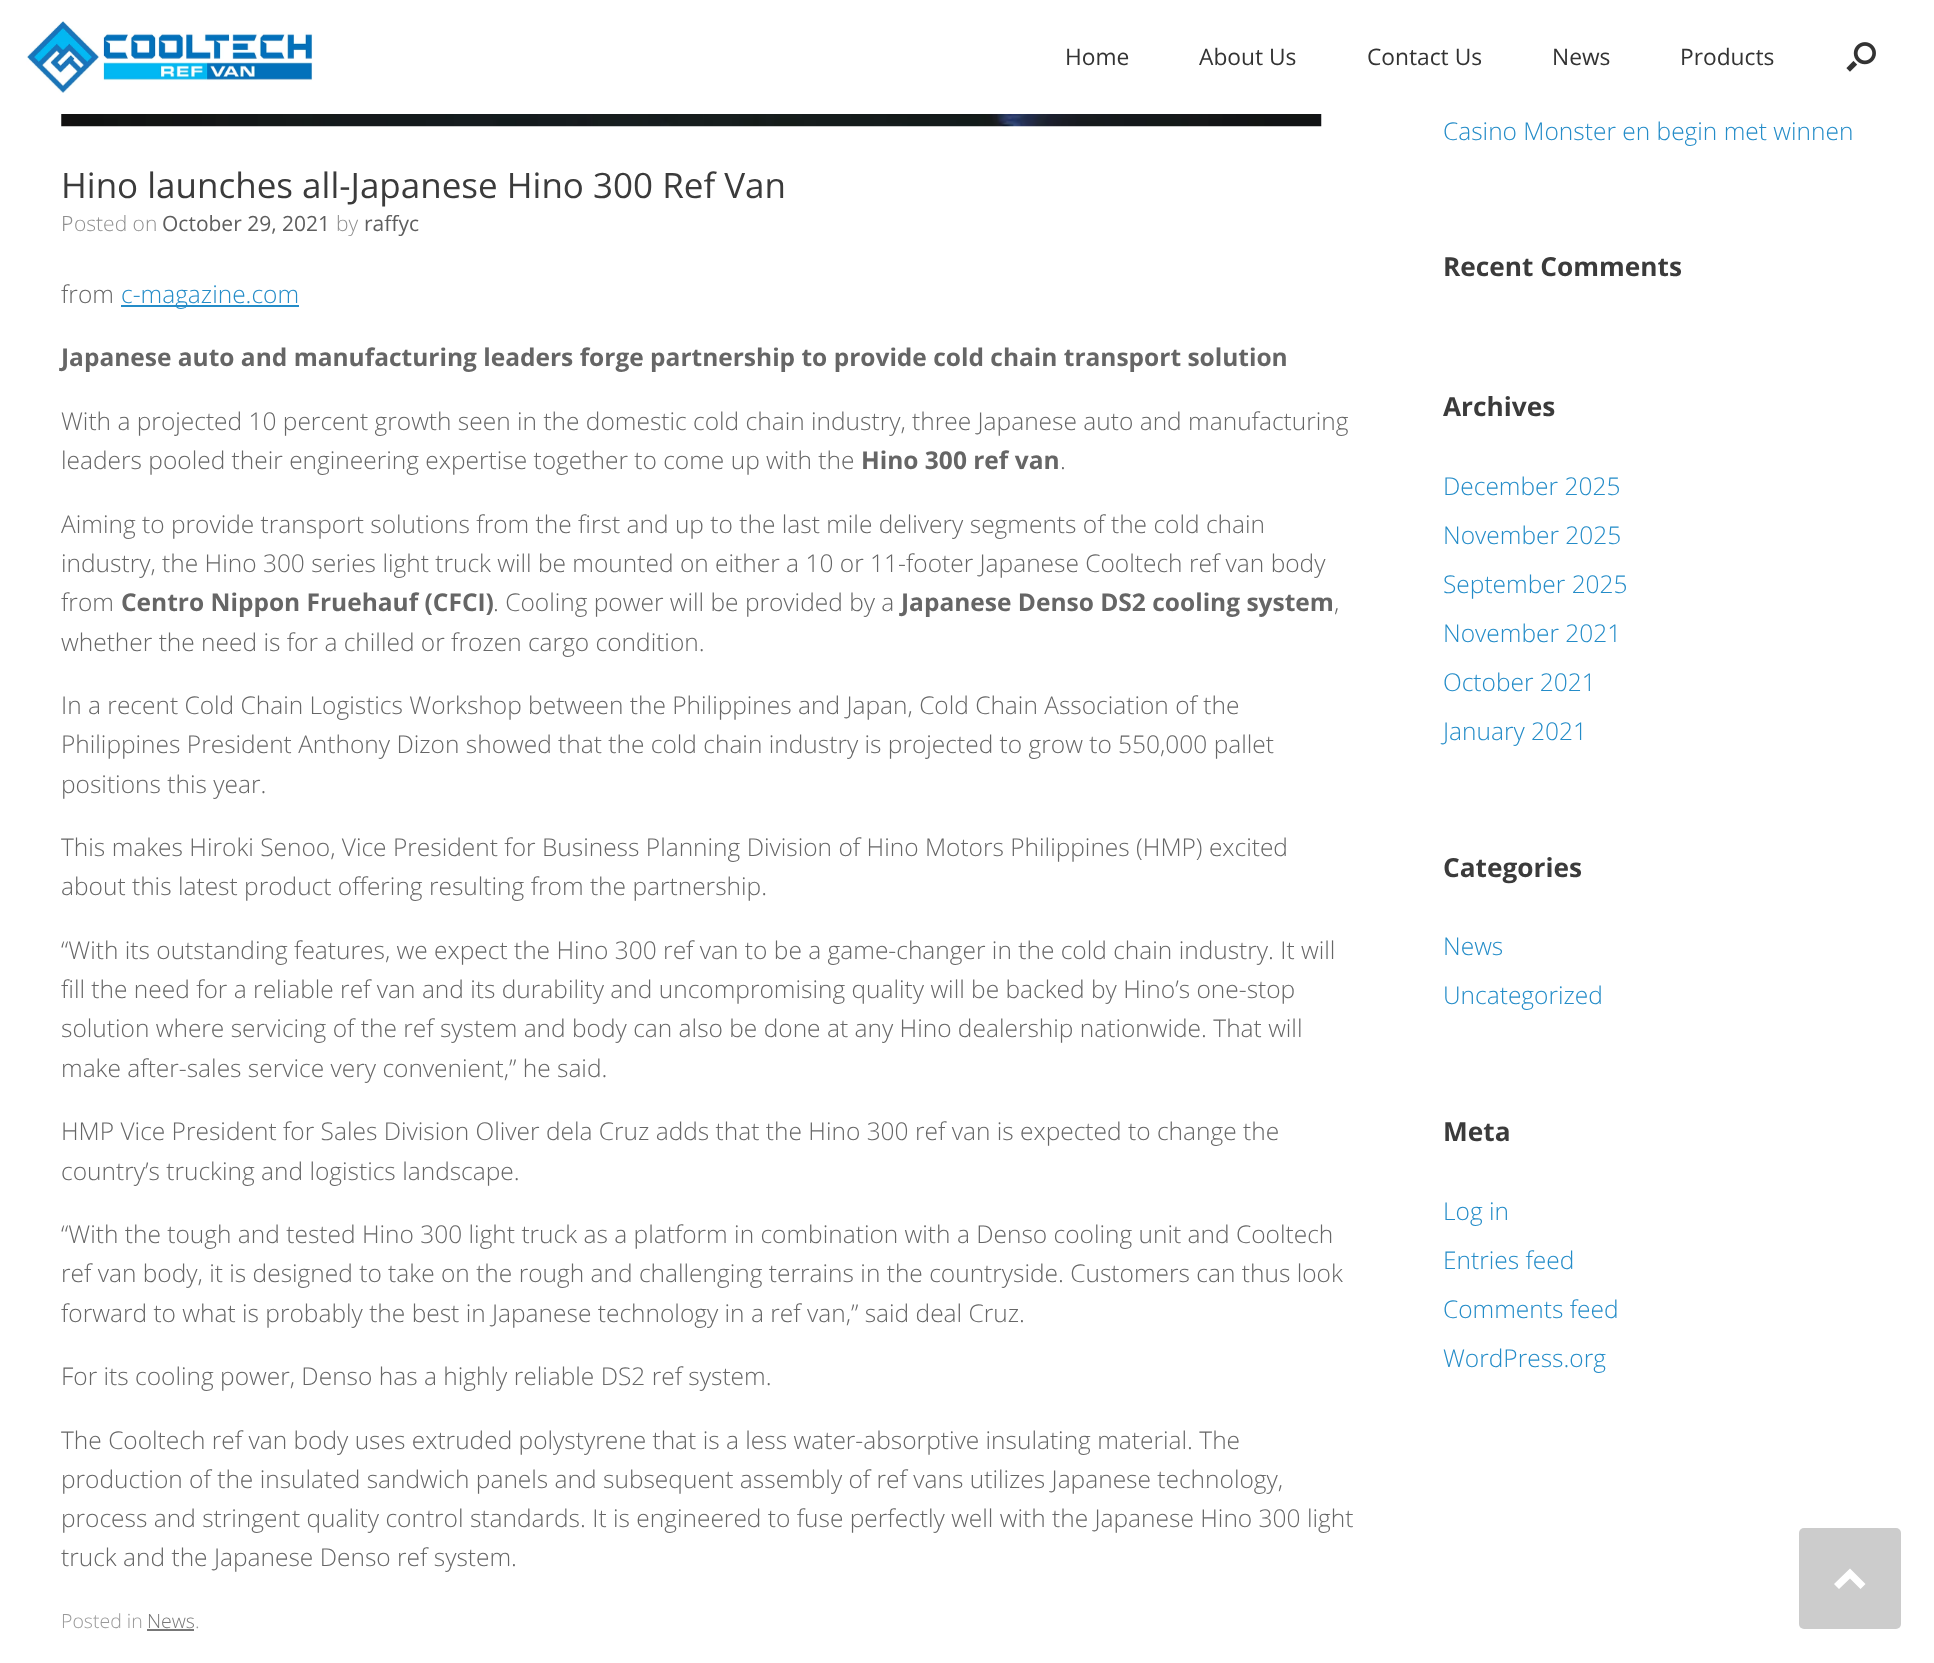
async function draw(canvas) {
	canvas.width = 1934;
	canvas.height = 1663;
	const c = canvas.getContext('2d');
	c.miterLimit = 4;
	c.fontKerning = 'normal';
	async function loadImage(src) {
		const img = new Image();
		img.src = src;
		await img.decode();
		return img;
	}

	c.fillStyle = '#fff';
	c.fillRect(0, 0, 1934, 1663);
	c.drawImage(await loadImage('img1.png'), 26, 21, 287, 72);
	c.font = '22.75px Open Sans';
	c.fillStyle = '#333';
	for (const [text, x, y] of [
		['Home', 1065, 65],
		['About Us', 1199, 65],
		['Contact Us', 1367, 65],
		['News', 1552, 65],
		['Products', 1680, 65],
	]) {
		c.fillText(text, x, y);
	}
	c.drawImage(await loadImage('img2.png'), 1846, 42, 30, 30);
	c.drawImage(await loadImage('img3.png'), 61, 114, 1261, 13);
	c.font = '35px Open Sans';
	c.fillStyle = '#3b3b3b';
	c.fillText('Hino launches all-Japanese Hino 300 Ref Van', 61, 198);
	c.font = '300 21px Noto Sans';
	c.fillStyle = '#8f8f8f';
	c.fillText('P', 61, 231);
	c.font = '300 21px Open Sans';
	c.fillText('osted on', 74, 231);
	c.font = '21px Open Sans';
	c.fillStyle = '#5e5e5e';
	c.fillText('October 29, 2021', 162, 231);
	c.font = '300 21px Open Sans';
	c.fillStyle = '#8f8f8f';
	c.fillText('by', 336, 231);
	c.font = '21px Open Sans';
	c.fillStyle = '#5e5e5e';
	c.fillText('raffyc', 364, 231);
	c.font = '300 24.5px Open Sans';
	c.fillStyle = '#666';
	c.fillText('from', 61, 303);
	c.fillStyle = '#248cc8';
	c.fillRect(121, 305, 178, 2);
	c.fillText('c-magazine.com', 121, 303);
	c.font = 'bold 24.5px Open Sans';
	c.fillStyle = '#666';
	c.fillText('Japanese auto and manufacturing leaders forge partnership to provide cold chain transport solution', 61, 366);
	c.font = '300 24.5px Open Sans';
	c.fillText('With a projected 10 percent growth seen in the domestic cold chain industry, three Japanese auto and manufacturing', 61, 430);
	c.fillText('leaders pooled their engineering expertise together to come up with the', 61, 469);
	c.font = 'bold 24.5px Open Sans';
	c.fillText('Hino 300 ref van', 861, 469);
	c.font = '300 24.5px Open Sans';
	for (const [text, x, y] of [
		['.', 1060, 469],
		['Aiming to provide transport solutions from the first and up to the last mile delivery segments of the cold chain', 61, 533],
		['industry, the Hino 300 series light truck will be mounted on either a 10 or 11-footer Japanese Cooltech ref van body', 61, 572],
		['from', 61, 611],
	]) {
		c.fillText(text, x, y);
	}
	c.font = 'bold 24.5px Open Sans';
	c.fillText('Centro Nippon Fruehauf (CFCI)', 121, 611);
	c.font = '300 24.5px Open Sans';
	c.fillText('. Cooling power will be provided by a', 493, 611);
	c.font = 'bold 24.5px Open Sans';
	c.fillText('Japanese Denso DS2 cooling system', 901, 611);
	c.font = '300 24.5px Open Sans';
	for (const [text, x, y] of [
		[',', 1334, 611],
		['whether the need is for a chilled or frozen cargo condition.', 61, 651],
		['In a recent Cold Chain Logistics Workshop between the Philippines and Japan, Cold Chain Association of the', 61, 714],
		['Philippines President Anthony Dizon showed that the cold chain industry is projected to grow to 550,000 pallet', 61, 753],
		['positions this year.', 61, 793],
		['This makes Hiroki Senoo, Vice President for Business Planning Division of Hino Motors Philippines (HMP) excited', 61, 856],
		['about this latest product offering resulting from the partnership.', 61, 895],
		['“With its outstanding features, we expect the Hino 300 ref van to be a game-changer in the cold chain industry. It will', 61, 959],
		['fill the need for a reliable ref van and its durability and uncompromising quality will be backed by Hino’s one-stop', 61, 998],
		['solution where servicing of the ref system and body can also be done at any Hino dealership nationwide. That will', 61, 1037],
		['make after-sales service very convenient,” he said.', 61, 1077],
		['HMP Vice President for Sales Division Oliver dela Cruz adds that the Hino 300 ref van is expected to change the', 61, 1140],
		['country’s trucking and logistics landscape.', 61, 1180],
		['“With the tough and tested Hino 300 light truck as a platform in combination with a Denso cooling unit and Cooltech', 61, 1243],
		['ref van body, it is designed to take on the rough and challenging terrains in the countryside. Customers can thus look', 61, 1282],
		['forward to what is probably the best in Japanese technology in a ref van,” said deal Cruz.', 61, 1322],
		['For its cooling power, Denso has a highly reliable DS2 ref system.', 61, 1385],
		['The Cooltech ref van body uses extruded polystyrene that is a less water-absorptive insulating material. The', 61, 1449],
		['production of the insulated sandwich panels and subsequent assembly of ref vans utilizes Japanese technology,', 61, 1488],
		['process and stringent quality control standards. It is engineered to fuse perfectly well with the Japanese Hino 300 light', 61, 1527],
		['truck and the Japanese Denso ref system.', 61, 1566],
	]) {
		c.fillText(text, x, y);
	}
	c.font = '300 19.5px Open Sans';
	c.fillStyle = '#999';
	c.fillText('Posted in', 61, 1628);
	c.fillStyle = '#777';
	c.fillText('News', 147, 1628);
	c.fillRect(147, 1629, 47, 2);
	c.fillStyle = '#999';
	c.fillText('.', 195, 1628);
	c.font = '300 24.5px Open Sans';
	c.fillStyle = '#248cc8';
	c.fillText('Casino Monster en begin met winnen', 1443, 140);
	c.font = 'bold 26.25px Open Sans';
	c.fillStyle = '#3b3b3b';
	c.fillText('Recent Comments', 1443, 276);
	c.fillText('Archives', 1443, 416);
	c.font = '300 24.5px Open Sans';
	c.fillStyle = '#248cc8';
	for (const [text, x, y] of [
		['December 2025', 1443, 495],
		['November 2025', 1443, 544],
		['September 2025', 1443, 593],
		['November 2021', 1443, 642],
		['October 2021', 1443, 691],
		['January 2021', 1443, 740],
	]) {
		c.fillText(text, x, y);
	}
	c.font = 'bold 26.25px Open Sans';
	c.fillStyle = '#3b3b3b';
	c.fillText('Categories', 1443, 877);
	c.font = '300 24.5px Open Sans';
	c.fillStyle = '#248cc8';
	c.fillText('News', 1443, 955);
	c.fillText('Uncategorized', 1443, 1004);
	c.font = 'bold 26.25px Open Sans';
	c.fillStyle = '#3b3b3b';
	c.fillText('Meta', 1443, 1141);
	c.font = '300 24.5px Open Sans';
	c.fillStyle = '#248cc8';
	for (const [text, x, y] of [
		['Log in', 1443, 1220],
		['Entries feed', 1443, 1269],
		['Comments feed', 1443, 1318],
		['WordPress.org', 1443, 1367],
	]) {
		c.fillText(text, x, y);
	}
	c.fillStyle = '#ccc';
	c.beginPath();
	c.roundRect(1799, 1528, 102, 101, 5);
	c.fill();
	c.fillStyle = '#fff';
	c.beginPath();
	c.moveTo(1865.5, 1584);
	c.lineTo(1850, 1568.5);
	c.lineTo(1834, 1584);
	c.lineTo(1839, 1589);
	c.lineTo(1850, 1578.5);
	c.lineTo(1860.5, 1589);
	c.closePath();
	c.fill();
}

draw(document.querySelector('canvas'));
